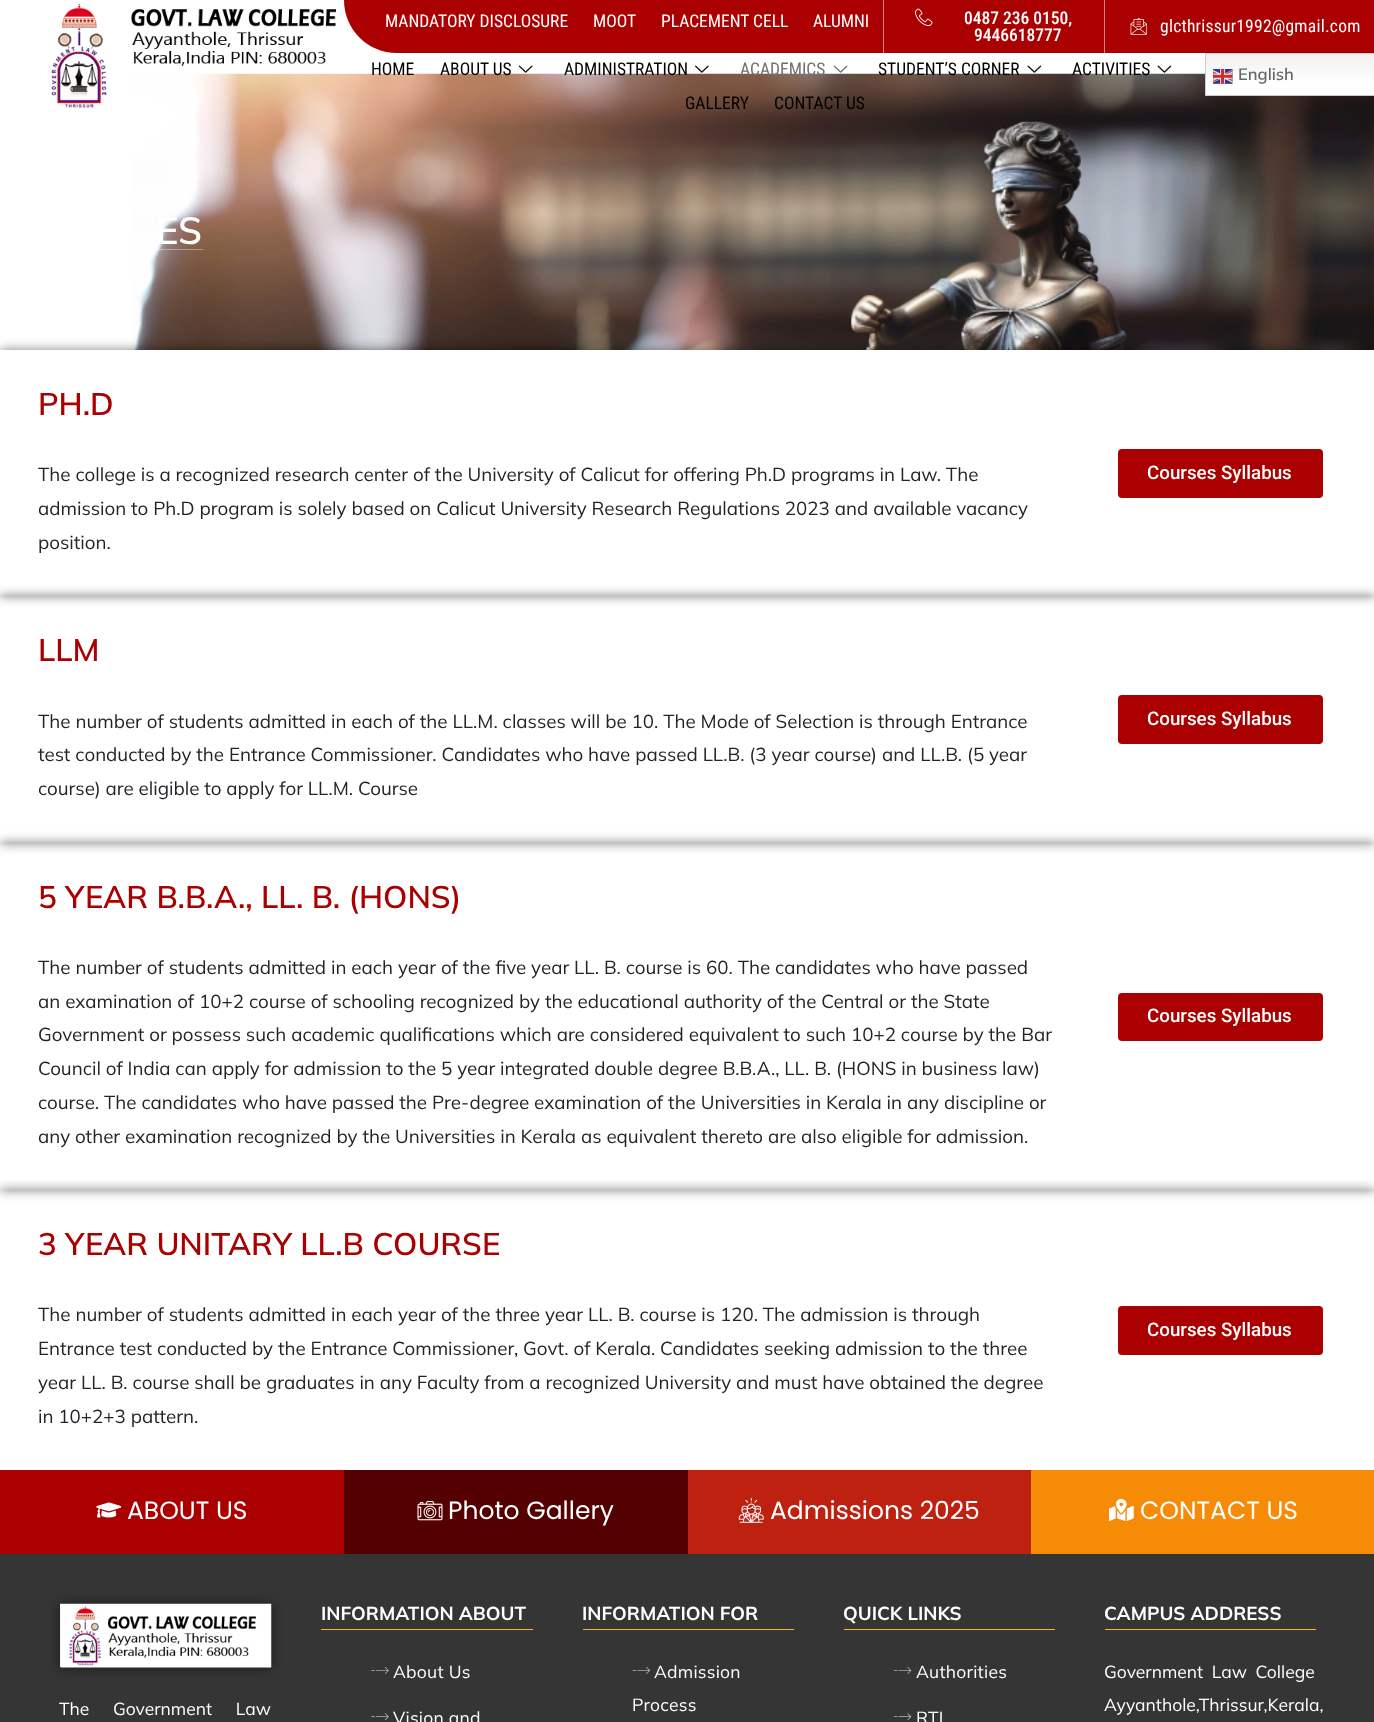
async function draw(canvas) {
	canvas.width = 1374;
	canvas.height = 1722;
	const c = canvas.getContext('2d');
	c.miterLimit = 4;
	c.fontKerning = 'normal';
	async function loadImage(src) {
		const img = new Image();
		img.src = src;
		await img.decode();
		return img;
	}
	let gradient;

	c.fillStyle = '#fff';
	c.fillRect(0, 0, 1374, 1722);
	c.drawImage(await loadImage('img9.png'), 132, 73, 1242, 277);
	c.drawImage(await loadImage('img1.png'), 51, 3, 285, 105);
	c.fillStyle = '#ab0001';
	c.beginPath();
	c.moveTo(344, 0);
	c.lineTo(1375, 0);
	c.lineTo(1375, 53);
	c.lineTo(397, 53);
	c.bezierCurveTo(367.5, 53, 344, 29.5, 344, 0);
	c.closePath();
	c.fill();
	c.fillStyle = '#d68283';
	c.fillRect(883, 0, 1, 53);
	c.font = '17.5px Roboto Condensed';
	c.fillStyle = '#fff';
	for (const [text, x, y] of [
		['MANDATORY DISCLOSURE', 385, 27],
		['MOOT', 593, 27],
		['PLACEMENT CELL', 661, 27],
		['ALUMNI', 813, 27],
	]) {
		c.fillText(text, x, y);
	}
	c.fillStyle = '#d68283';
	c.fillRect(1104, 0, 1, 53);
	c.drawImage(await loadImage('img2.png'), 915, 8, 18, 19);
	c.font = '500 17.5px Roboto Condensed';
	c.fillStyle = '#fff';
	c.fillText('0487 236 0150,', 964, 24);
	c.fillText('9446618777', 974, 41);
	c.drawImage(await loadImage('img3.png'), 1130, 18, 17, 17);
	c.letterSpacing = '0.25px';
	c.font = '17.5px Roboto Condensed';
	c.fillText('glcthrissur1992@gmail.com', 1160, 32);
	c.letterSpacing = '0px';
	c.fillStyle = '#000';
	c.fillText('HOME', 371, 75);
	c.fillText('ABOUT US', 440, 75);
	c.drawImage(await loadImage('img4.png'), 518, 65, 15, 8);
	c.fillText('ADMINISTRATION', 564, 75);
	c.drawImage(await loadImage('img5.png'), 695, 65, 14, 8);
	c.fillStyle = '#707070';
	c.fillText('ACADEMICS', 740, 75);
	c.drawImage(await loadImage('img6.png'), 833, 65, 15, 8);
	c.fillStyle = '#000';
	c.fillText('STUDENT’S CORNER', 878, 75);
	c.drawImage(await loadImage('img7.png'), 1027, 65, 15, 8);
	c.fillText('ACTIVITIES', 1072, 75);
	c.drawImage(await loadImage('img7.png'), 1157, 65, 15, 8);
	c.fillText('GALLERY', 685, 109);
	c.fillText('CONTACT US', 774, 109);
	gradient = c.createLinearGradient(1307, 52, 1307, 96);
	gradient.addColorStop(0, '#efefef');
	gradient.addColorStop(0.7, '#fff');
	c.fillStyle = gradient;
	c.fillRect(1206, 54, 168, 41);
	c.strokeStyle = '#ccc';
	c.strokeRect(1205.5, 53.5, 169, 42);
	c.drawImage(await loadImage('img8.png'), 1213, 68, 20, 16);
	c.font = '600 16.5px Mulish';
	c.fillStyle = '#666';
	c.fillText('English', 1238, 80);
	c.fillStyle = '#ffffff59';
	c.fillRect(156, 249, 47, 1);
	c.font = '600 38px Mulish';
	c.fillStyle = '#fff';
	c.fillText('ES', 156, 244);
	c.save();
	c.beginPath();
	c.moveTo(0, 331);
	c.lineTo(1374, 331);
	c.lineTo(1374, 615);
	c.lineTo(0, 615);
	c.closePath();
	c.moveTo(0, 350);
	c.lineTo(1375, 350);
	c.lineTo(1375, 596);
	c.lineTo(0, 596);
	c.closePath();
	c.clip('evenodd');
	c.fillStyle = '#00000080';
	c.filter = 'blur(6px)';
	c.beginPath();
	c.rect(0, 350, 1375, 246);
	c.fill();
	c.filter = 'none';
	c.restore();
	c.font = '600 31.25px Mulish';
	c.fillStyle = '#ab0001';
	c.fillText('PH.D', 38, 415);
	c.font = '18.75px Mulish';
	c.fillStyle = '#212529';
	for (const [text, x, y] of [
		['The college is a recognized research center of the University of Calicut for offering Ph.D programs in Law. The', 38, 481],
		['admission to Ph.D program is solely based on Calicut University Research Regulations 2023 and available vacancy', 38, 515],
		['position.', 38, 549],
	]) {
		c.fillText(text, x, y);
	}
	c.fillStyle = '#ab0001';
	c.beginPath();
	c.roundRect(1118, 449, 205, 49, 4);
	c.fill();
	c.font = '500 18.75px Roboto';
	c.fillStyle = '#fff';
	c.fillText('Courses Syllabus', 1147, 479);
	c.save();
	c.beginPath();
	c.moveTo(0, 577);
	c.lineTo(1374, 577);
	c.lineTo(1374, 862);
	c.lineTo(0, 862);
	c.closePath();
	c.moveTo(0, 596);
	c.lineTo(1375, 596);
	c.lineTo(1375, 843);
	c.lineTo(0, 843);
	c.closePath();
	c.clip('evenodd');
	c.fillStyle = '#00000080';
	c.filter = 'blur(6px)';
	c.beginPath();
	c.rect(0, 596, 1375, 247);
	c.fill();
	c.filter = 'none';
	c.restore();
	c.font = '600 31.25px Mulish';
	c.fillStyle = '#ab0001';
	c.fillText('LLM', 38, 661);
	c.font = '18.75px Mulish';
	c.fillStyle = '#212529';
	for (const [text, x, y] of [
		['The number of students admitted in each of the LL.M. classes will be 10. The Mode of Selection is through Entrance', 38, 728],
		['test conducted by the Entrance Commissioner. Candidates who have passed LL.B. (3 year course) and LL.B. (5 year', 38, 761],
		['course) are eligible to apply for LL.M. Course', 38, 795],
	]) {
		c.fillText(text, x, y);
	}
	c.fillStyle = '#ab0001';
	c.beginPath();
	c.roundRect(1118, 695, 205, 49, 4);
	c.fill();
	c.font = '500 18.75px Roboto';
	c.fillStyle = '#fff';
	c.fillText('Courses Syllabus', 1147, 725);
	c.save();
	c.beginPath();
	c.moveTo(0, 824);
	c.lineTo(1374, 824);
	c.lineTo(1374, 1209);
	c.lineTo(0, 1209);
	c.closePath();
	c.moveTo(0, 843);
	c.lineTo(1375, 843);
	c.lineTo(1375, 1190);
	c.lineTo(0, 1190);
	c.closePath();
	c.clip('evenodd');
	c.fillStyle = '#00000080';
	c.filter = 'blur(6px)';
	c.beginPath();
	c.rect(0, 843, 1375, 347);
	c.fill();
	c.filter = 'none';
	c.restore();
	c.font = '600 31.25px Mulish';
	c.fillStyle = '#ab0001';
	c.fillText('5 YEAR B.B.A., LL. B. (HONS)', 38, 908);
	c.font = '18.75px Mulish';
	c.fillStyle = '#212529';
	for (const [text, x, y] of [
		['The number of students admitted in each year of the five year LL. B. course is 60. The candidates who have passed', 38, 974],
		['an examination of 10+2 course of schooling recognized by the educational authority of the Central or the State', 38, 1008],
		['Government or possess such academic qualifications which are considered equivalent to such 10+2 course by the Bar', 38, 1041],
		['Council of India can apply for admission to the 5 year integrated double degree B.B.A., LL. B. (HONS in business law)', 38, 1075],
		['course. The candidates who have passed the Pre-degree examination of the Universities in Kerala in any discipline or', 38, 1109],
		['any other examination recognized by the Universities in Kerala as equivalent thereto are also eligible for admission.', 38, 1143],
	]) {
		c.fillText(text, x, y);
	}
	c.fillStyle = '#ab0001';
	c.beginPath();
	c.roundRect(1118, 993, 205, 48, 4);
	c.fill();
	c.font = '500 18.75px Roboto';
	c.fillStyle = '#fff';
	c.fillText('Courses Syllabus', 1147, 1022);
	c.save();
	c.beginPath();
	c.rect(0, 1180, 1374, 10);
	c.clip();
	c.fillStyle = '#00000080';
	c.filter = 'blur(6px)';
	c.beginPath();
	c.rect(0, 1190, 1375, 280);
	c.fill();
	c.filter = 'none';
	c.restore();
	c.font = '600 31.25px Mulish';
	c.fillStyle = '#ab0001';
	c.fillText('3 YEAR UNITARY LL.B COURSE', 38, 1255);
	c.font = '18.75px Mulish';
	c.fillStyle = '#212529';
	for (const [text, x, y] of [
		['The number of students admitted in each year of the three year LL. B. course is 120. The admission is through', 38, 1321],
		['Entrance test conducted by the Entrance Commissioner, Govt. of Kerala. Candidates seeking admission to the three', 38, 1355],
		['year LL. B. course shall be graduates in any Faculty from a recognized University and must have obtained the degree', 38, 1389],
		['in 10+2+3 pattern.', 38, 1423],
	]) {
		c.fillText(text, x, y);
	}
	c.fillStyle = '#ab0001';
	c.beginPath();
	c.roundRect(1118, 1306, 205, 49, 4);
	c.fill();
	c.font = '500 18.75px Roboto';
	c.fillStyle = '#fff';
	c.fillText('Courses Syllabus', 1147, 1336);
	c.fillStyle = '#ab0001';
	c.fillRect(0, 1470, 344, 84);
	c.drawImage(await loadImage('img10.png'), 96, 1502, 25, 16);
	c.font = '25px Poppins';
	c.fillStyle = '#fff';
	c.fillText('ABOUT US', 127, 1519);
	c.fillStyle = '#500';
	c.fillRect(344, 1470, 344, 84);
	c.drawImage(await loadImage('img11.png'), 417, 1501, 26, 20);
	c.fillStyle = '#fff';
	c.fillText('Photo Gallery', 448, 1519);
	c.fillStyle = '#be2110';
	c.fillRect(688, 1470, 343, 84);
	c.drawImage(await loadImage('img12.png'), 738, 1497, 26, 26);
	c.fillStyle = '#fff';
	c.fillText('Admissions 2025', 770, 1519);
	c.fillStyle = '#f58b07';
	c.fillRect(1031, 1470, 343, 84);
	c.drawImage(await loadImage('img13.png'), 1109, 1498, 25, 24);
	c.fillStyle = '#fff';
	c.fillText('CONTACT US', 1140, 1519);
	c.fillStyle = '#353535';
	c.fillRect(0, 1554, 1374, 168);
	c.fillStyle = '#00000080';
	c.filter = 'blur(6px)';
	c.beginPath();
	c.rect(60, 1604, 211, 64);
	c.fill();
	c.filter = 'none';
	c.drawImage(await loadImage('img14.png'), 60, 1603, 212, 65);
	c.wordSpacing = '19px';
	c.font = '17.5px Mulish';
	c.fillStyle = '#fff';
	c.fillText('The Government Law', 59, 1715);
	c.fillStyle = '#ffb523';
	c.fillRect(321, 1629, 212, 1);
	c.wordSpacing = '0px';
	c.font = 'bold 18.75px Mulish';
	c.fillStyle = '#fff';
	c.fillText('INFORMATION ABOUT', 321, 1620);
	c.drawImage(await loadImage('img15.png'), 371, 1667, 18, 7);
	c.letterSpacing = '0.25px';
	c.font = '17.5px Mulish';
	c.fillText('About Us', 393, 1678);
	c.drawImage(await loadImage('img16.png'), 371, 1713, 18, 8);
	c.fillText('Vision and', 393, 1724);
	c.fillStyle = '#ffb523';
	c.fillRect(583, 1629, 211, 1);
	c.letterSpacing = '0px';
	c.font = 'bold 18.75px Mulish';
	c.fillStyle = '#fff';
	c.fillText('INFORMATION FOR', 582, 1620);
	c.drawImage(await loadImage('img17.png'), 632, 1667, 18, 7);
	c.letterSpacing = '0.25px';
	c.font = '17.5px Mulish';
	c.fillText('Admission', 654, 1678);
	c.fillText('Process', 632, 1711);
	c.fillStyle = '#ffb523';
	c.fillRect(844, 1629, 211, 1);
	c.letterSpacing = '0px';
	c.font = 'bold 18.75px Mulish';
	c.fillStyle = '#fff';
	c.fillText('QUICK LINKS', 843, 1620);
	c.drawImage(await loadImage('img18.png'), 893, 1667, 19, 7);
	c.letterSpacing = '0.25px';
	c.font = '17.5px Mulish';
	c.fillText('Authorities', 916, 1678);
	c.drawImage(await loadImage('img19.png'), 893, 1713, 19, 8);
	c.fillText('RTI', 916, 1724);
	c.fillStyle = '#ffb523';
	c.fillRect(1105, 1629, 211, 1);
	c.letterSpacing = '0px';
	c.font = 'bold 18.75px Mulish';
	c.fillStyle = '#fff';
	c.fillText('CAMPUS ADDRESS', 1104, 1620);
	c.wordSpacing = '4px';
	c.font = '17.5px Mulish';
	c.fillText('Government Law College', 1104, 1678);
	c.wordSpacing = '0px';
	c.fillText('Ayyanthole,Thrissur,Kerala,', 1104, 1711);
}

draw(document.querySelector('canvas'));
